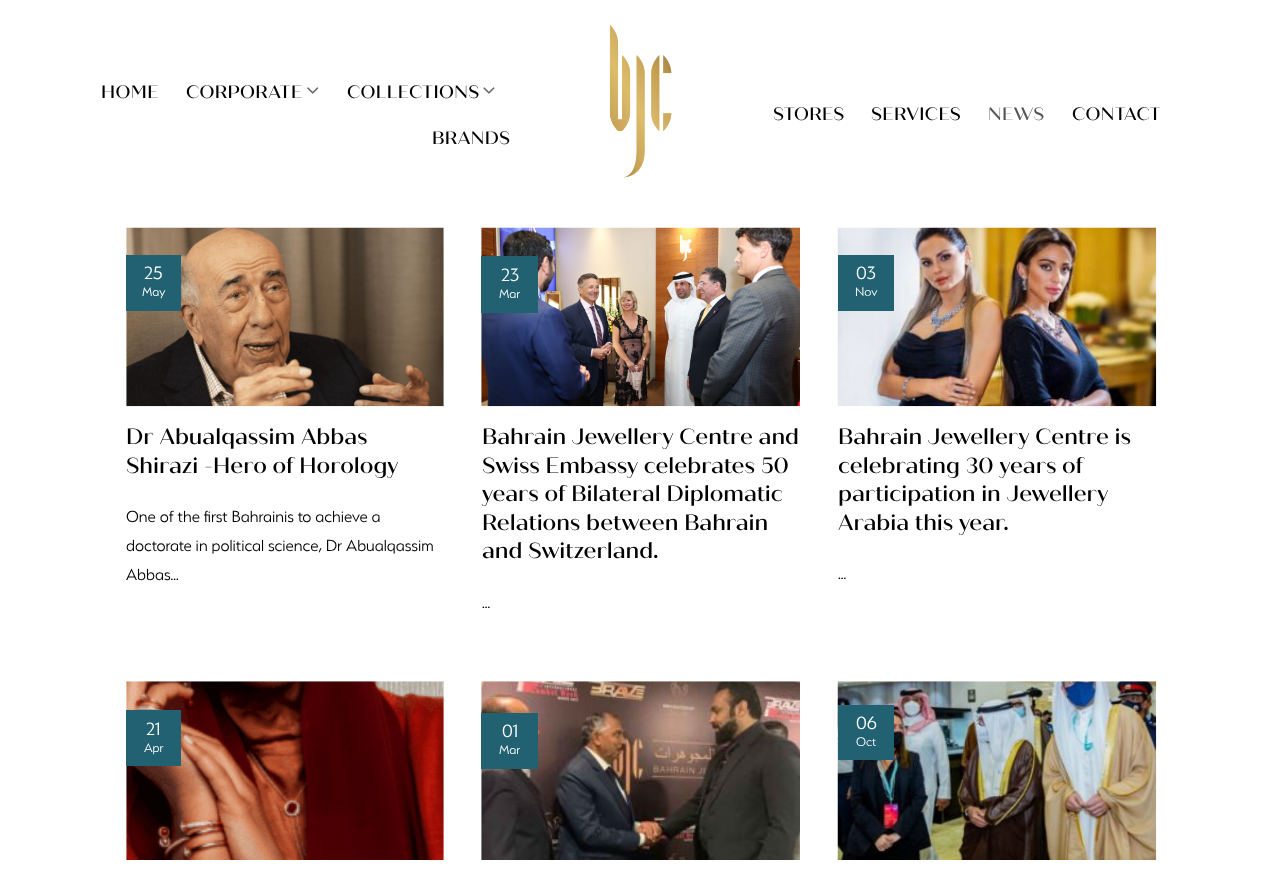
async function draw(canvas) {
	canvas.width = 1282;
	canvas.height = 880;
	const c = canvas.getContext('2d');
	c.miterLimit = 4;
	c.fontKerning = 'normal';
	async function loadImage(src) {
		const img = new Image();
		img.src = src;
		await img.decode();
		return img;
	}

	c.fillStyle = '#fff';
	c.fillRect(0, 0, 1282, 880);
	c.letterSpacing = '0.4px';
	c.font = '500 18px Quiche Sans';
	c.fillStyle = '#000';
	c.fillText('HOME', 101, 98);
	c.fillText('CORPORATE', 186, 98);
	c.drawImage(await loadImage('img1.png'), 307, 87, 12, 7);
	c.fillText('COLLECTIONS', 347, 98);
	c.drawImage(await loadImage('img2.png'), 483, 87, 12, 7);
	c.fillText('BRANDS', 432, 144);
	c.drawImage(await loadImage('img3.png'), 610, 25, 62, 153);
	c.fillText('STORES', 773, 120);
	c.fillText('SERVICES', 871, 120);
	c.fillStyle = '#555';
	c.fillText('NEWS', 988, 120);
	c.fillStyle = '#000';
	c.fillText('CONTACT', 1072, 120);
	c.drawImage(await loadImage('img4.png'), 126, 227, 318, 180);
	c.fillStyle = '#216171';
	c.fillRect(126, 255, 55, 56);
	c.letterSpacing = '0px';
	c.font = '300 20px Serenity';
	c.fillStyle = '#fff';
	c.fillText('25', 144, 279);
	c.font = '300 14px Serenity';
	c.fillText('May', 142, 296);
	c.font = '500 22px Quiche Sans';
	c.fillStyle = '#000';
	c.fillText('Dr Abualqassim Abbas', 126, 444);
	c.fillText('Shirazi -Hero of Horology', 126, 473);
	c.font = '300 18px Serenity';
	for (const [text, x, y] of [
		['One of the first Bahrainis to achieve a', 126, 522],
		['doctorate in political science, Dr Abualqassim', 126, 551],
		['Abbas...', 126, 580],
	]) {
		c.fillText(text, x, y);
	}
	c.drawImage(await loadImage('img5.png'), 481, 227, 319, 180);
	c.fillStyle = '#216171';
	c.fillRect(481, 256, 57, 57);
	c.font = '300 20px Serenity';
	c.fillStyle = '#fff';
	c.fillText('23', 501, 281);
	c.font = '300 14px Serenity';
	c.fillText('Mar', 499, 298);
	c.font = '500 22px Quiche Sans';
	c.fillStyle = '#000';
	for (const [text, x, y] of [
		['Bahrain Jewellery Centre and', 482, 444],
		['Swiss Embassy celebrates 50', 482, 473],
		['years of Bilateral Diplomatic', 482, 501],
		['Relations between Bahrain', 482, 530],
		['and Switzerland.', 482, 558],
	]) {
		c.fillText(text, x, y);
	}
	c.font = '300 18px Serenity';
	c.fillText('...', 482, 608);
	c.drawImage(await loadImage('img6.png'), 837, 227, 320, 180);
	c.fillStyle = '#216171';
	c.fillRect(838, 255, 56, 56);
	c.font = '300 20px Serenity';
	c.fillStyle = '#fff';
	c.fillText('03', 856, 279);
	c.font = '300 14px Serenity';
	c.fillText('Nov', 855, 296);
	c.font = '500 22px Quiche Sans';
	c.fillStyle = '#000';
	for (const [text, x, y] of [
		['Bahrain Jewellery Centre is', 838, 444],
		['celebrating 30 years of', 838, 473],
		['participation in Jewellery', 838, 501],
		['Arabia this year.', 838, 530],
	]) {
		c.fillText(text, x, y);
	}
	c.font = '300 18px Serenity';
	c.fillText('...', 838, 579);
	c.drawImage(await loadImage('img7.png'), 126, 681, 318, 179);
	c.fillStyle = '#216171';
	c.fillRect(126, 710, 55, 56);
	c.font = '300 20px Serenity';
	c.fillStyle = '#fff';
	c.fillText('21', 146, 735);
	c.font = '300 14px Serenity';
	c.fillText('Apr', 144, 752);
	c.drawImage(await loadImage('img8.png'), 481, 681, 319, 179);
	c.fillStyle = '#216171';
	c.fillRect(481, 713, 57, 56);
	c.font = '300 20px Serenity';
	c.fillStyle = '#fff';
	c.fillText('01', 502, 737);
	c.font = '300 14px Serenity';
	c.fillText('Mar', 499, 754);
	c.drawImage(await loadImage('img9.png'), 837, 681, 320, 179);
	c.fillStyle = '#216171';
	c.fillRect(838, 705, 56, 55);
	c.font = '300 20px Serenity';
	c.fillStyle = '#fff';
	c.fillText('06', 856, 729);
	c.font = '300 14px Serenity';
	c.fillText('Oct', 856, 746);
}

draw(document.querySelector('canvas'));
